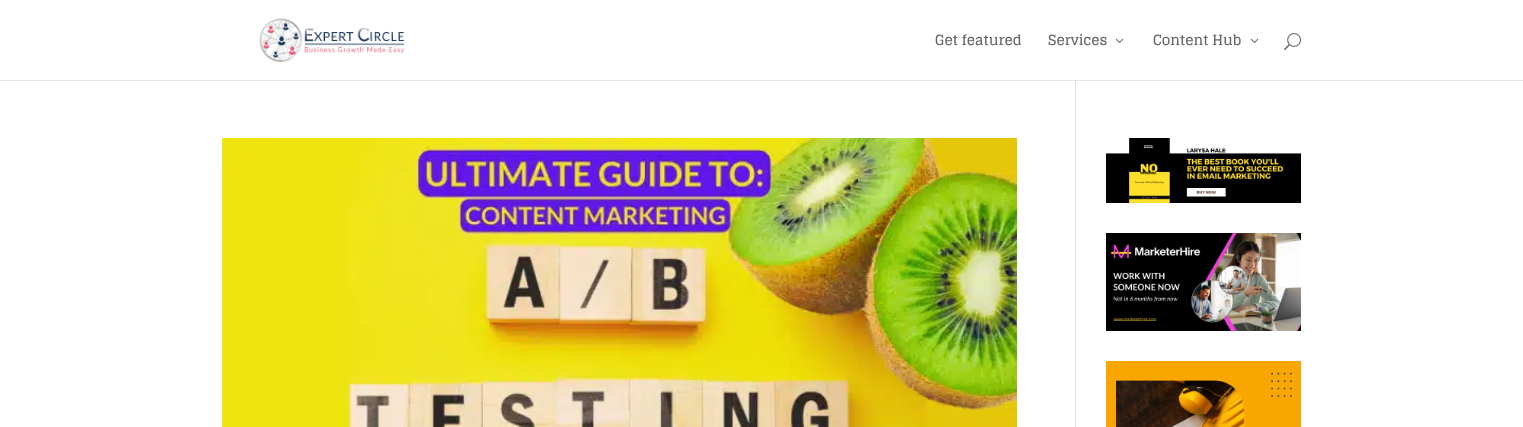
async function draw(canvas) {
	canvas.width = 1523;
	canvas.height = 427;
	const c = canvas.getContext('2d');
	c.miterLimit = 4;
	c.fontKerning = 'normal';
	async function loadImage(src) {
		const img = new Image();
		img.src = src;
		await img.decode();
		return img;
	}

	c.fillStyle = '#fff';
	c.fillRect(0, 0, 1523, 427);
	c.fillStyle = '#e6e6e6';
	c.fillRect(0, 80, 1523, 1);
	c.drawImage(await loadImage('img1.png'), 259, 18, 145, 44);
	c.font = 'bold 14px Glegoo';
	c.fillStyle = '#666';
	c.fillText('Get featured', 935, 45);
	c.fillText('Services', 1048, 45);
	c.drawImage(await loadImage('img2.png'), 1115, 38, 9, 5);
	c.fillText('Content Hub', 1153, 45);
	c.drawImage(await loadImage('img2.png'), 1250, 38, 9, 5);
	c.drawImage(await loadImage('img3.png'), 1284, 33, 17, 18);
	c.fillStyle = '#e2e2e2';
	c.fillRect(1075, 80, 1, 347);
	c.fillStyle = '#cbcbcb';
	c.fillRect(1075, 80, 1, 1);
	c.drawImage(await loadImage('img4.png'), 222, 138, 795, 289);
	c.drawImage(await loadImage('img5.png'), 1106, 138, 195, 65);
	c.drawImage(await loadImage('img6.png'), 1106, 233, 195, 98);
	c.drawImage(await loadImage('img7.png'), 1106, 361, 195, 66);
}

draw(document.querySelector('canvas'));
